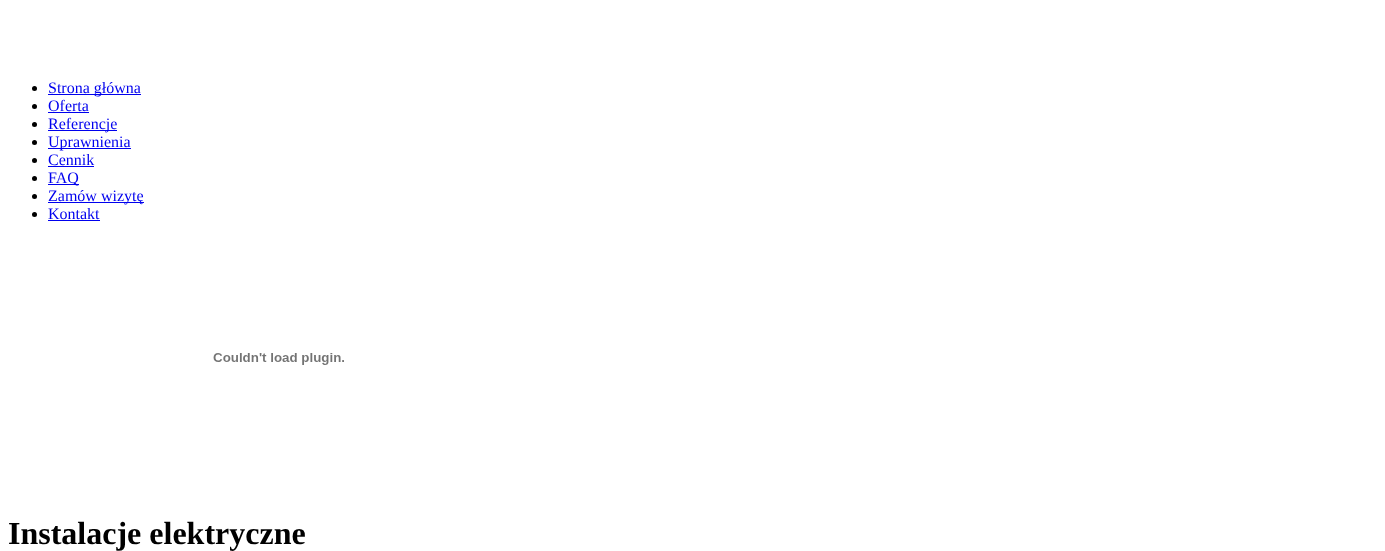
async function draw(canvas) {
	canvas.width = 1385;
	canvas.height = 551;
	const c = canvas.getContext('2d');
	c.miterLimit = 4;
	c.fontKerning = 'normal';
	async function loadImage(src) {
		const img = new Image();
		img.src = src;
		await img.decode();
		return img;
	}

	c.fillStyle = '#fff';
	c.fillRect(0, 0, 1385, 551);
	c.fillStyle = '#000';
	c.beginPath();
	c.arc(34.5, 88.5, 2.5, 0, 2 * Math.PI);
	c.fill();
	c.fillStyle = '#00e';
	c.fillRect(48, 94, 93, 1);
	c.font = '16px Liberation Serif';
	c.fillText('Strona główna', 48, 93);
	c.fillStyle = '#000';
	c.beginPath();
	c.arc(34.5, 106.5, 2.5, 0, 2 * Math.PI);
	c.fill();
	c.fillStyle = '#00e';
	c.fillText('Oferta', 48, 111);
	c.fillRect(48, 112, 41, 1);
	c.fillStyle = '#000';
	c.beginPath();
	c.arc(34.5, 124.5, 2.5, 0, 2 * Math.PI);
	c.fill();
	c.fillStyle = '#00e';
	c.fillRect(48, 130, 69, 1);
	c.fillText('Referencje', 48, 129);
	c.fillStyle = '#000';
	c.beginPath();
	c.arc(34.5, 142.5, 2.5, 0, 2 * Math.PI);
	c.fill();
	c.fillStyle = '#00e';
	c.fillRect(48, 148, 83, 1);
	c.fillText('Uprawnienia', 48, 147);
	c.fillStyle = '#000';
	c.beginPath();
	c.arc(34.5, 160.5, 2.5, 0, 2 * Math.PI);
	c.fill();
	c.fillStyle = '#00e';
	c.fillText('Cennik', 48, 165);
	c.fillRect(48, 166, 46, 1);
	c.fillStyle = '#000';
	c.beginPath();
	c.arc(34.5, 178.5, 2.5, 0, 2 * Math.PI);
	c.fill();
	c.fillStyle = '#00e';
	c.fillRect(48, 184, 31, 1);
	c.fillText('FAQ', 48, 183);
	c.fillStyle = '#000';
	c.beginPath();
	c.arc(34.5, 196.5, 2.5, 0, 2 * Math.PI);
	c.fill();
	c.fillStyle = '#00e';
	c.fillRect(48, 202, 96, 1);
	c.fillText('Zamów wizytę', 48, 201);
	c.fillStyle = '#000';
	c.beginPath();
	c.arc(34.5, 214.5, 2.5, 0, 2 * Math.PI);
	c.fill();
	c.fillStyle = '#00e';
	c.fillText('Kontakt', 48, 219);
	c.fillRect(48, 220, 52, 1);
	c.drawImage(await loadImage('img1.png'), 213, 353, 131, 12);
	c.font = 'bold 32px Liberation Serif';
	c.fillStyle = '#000';
	c.fillText('Instalacje elektryczne', 8, 544);
}

draw(document.querySelector('canvas'));
